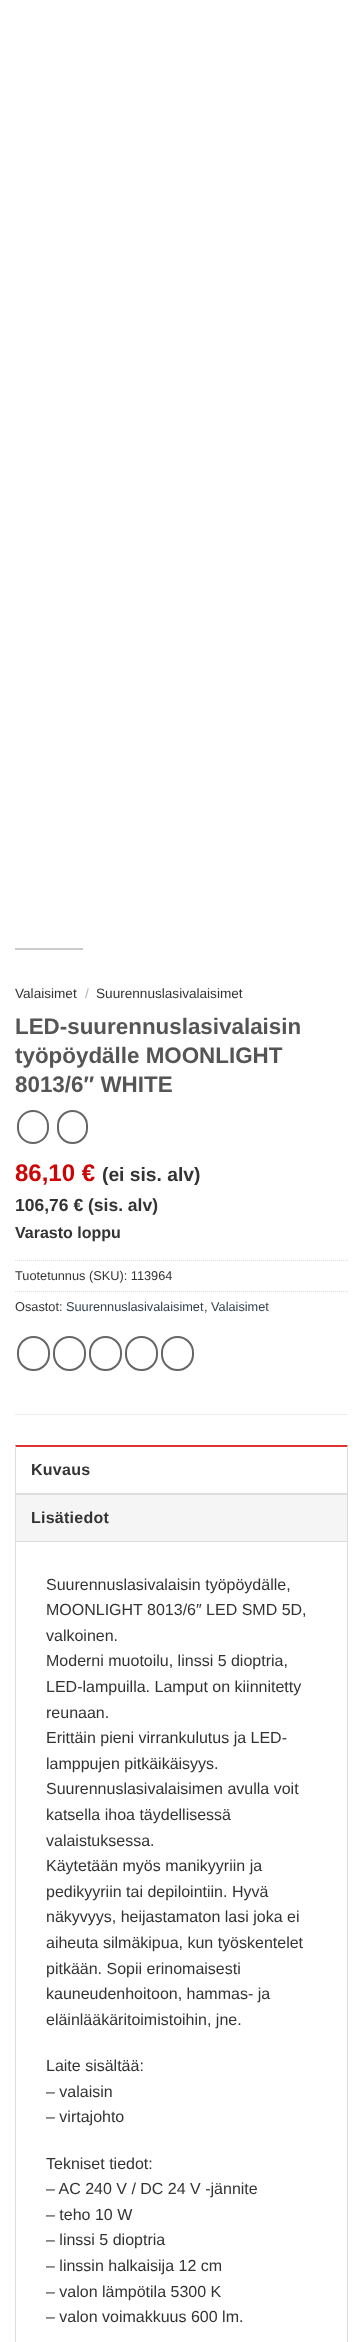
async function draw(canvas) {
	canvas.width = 363;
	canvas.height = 2342;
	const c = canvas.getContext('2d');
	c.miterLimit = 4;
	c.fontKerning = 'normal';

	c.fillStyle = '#fff';
	c.fillRect(0, 0, 363, 2342);
	c.fillStyle = '#ccc';
	c.fillRect(15, 948, 68, 2);
	c.font = '13.6px Liberation Sans';
	c.fillStyle = '#333';
	c.fillText('Valaisimet', 15, 998);
	c.fillStyle = '#b2b2b2';
	c.fillText('/', 85, 998);
	c.fillStyle = '#333';
	c.fillText('Suurennuslasivalaisimet', 96, 998);
	c.font = 'bold 22.4px Liberation Sans';
	c.fillStyle = '#555';
	for (const [text, x, y] of [
		['LED-suurennuslasivalaisin', 15, 1034],
		['työpöydälle MOONLIGHT', 15, 1063],
		['8013/6″ WHITE', 15, 1092],
	]) {
		c.fillText(text, x, y);
	}
	c.beginPath();
	c.roundRect(18, 1111, 30, 32, 15);
	c.strokeStyle = '#666';
	c.lineWidth = 2;
	c.stroke();
	c.beginPath();
	c.roundRect(58, 1111, 29, 32, 14.5);
	c.stroke();
	c.font = 'bold 24px Liberation Sans';
	c.fillStyle = '#ce0505';
	c.fillText('86,10 €', 15, 1181);
	c.font = 'bold 19.25px Liberation Sans';
	c.fillStyle = '#333';
	c.fillText('(ei sis. alv)', 102, 1181);
	c.font = 'bold 17.5px Liberation Sans';
	c.fillText('106,76 € (sis. alv)', 15, 1211);
	c.font = 'bold 16px Liberation Sans';
	c.fillText('Varasto loppu', 15, 1238);
	c.beginPath();
	c.moveTo(15, 1260.5);
	c.lineTo(348, 1260.5);
	c.strokeStyle = '#ddd';
	c.lineWidth = 1;
	c.setLineDash([1, 1]);
	c.stroke();
	c.font = '12.75px Liberation Sans';
	c.fillText('Tuotetunnus (SKU): 113964', 15, 1280);
	c.beginPath();
	c.moveTo(15, 1291.5);
	c.lineTo(348, 1291.5);
	c.stroke();
	c.fillText('Osastot:', 15, 1311);
	c.fillStyle = '#33404c';
	c.fillText('Suurennuslasivalaisimet', 66, 1311);
	c.fillStyle = '#333';
	c.fillText(',', 204, 1311);
	c.fillStyle = '#33404c';
	c.fillText('Valaisimet', 211, 1311);
	c.beginPath();
	c.roundRect(18, 1337, 31, 33, 15.5);
	c.strokeStyle = '#666';
	c.lineWidth = 2;
	c.setLineDash([]);
	c.stroke();
	c.beginPath();
	c.roundRect(54, 1337, 31, 33, 15.5);
	c.stroke();
	c.beginPath();
	c.roundRect(90, 1337, 31, 33, 15.5);
	c.stroke();
	c.beginPath();
	c.roundRect(126, 1337, 31, 33, 15.5);
	c.stroke();
	c.beginPath();
	c.roundRect(162, 1337, 31, 33, 15.5);
	c.stroke();
	c.fillStyle = '#ececec';
	c.fillRect(15, 1414, 333, 1);
	c.fillStyle = '#d33';
	c.beginPath();
	c.moveTo(15, 1445);
	c.lineTo(348, 1445);
	c.lineTo(347, 1447);
	c.lineTo(16, 1447);
	c.closePath();
	c.fill();
	c.fillStyle = '#ddd';
	c.beginPath();
	c.moveTo(348, 1445);
	c.lineTo(348, 1493);
	c.lineTo(347, 1493);
	c.lineTo(347, 1447);
	c.closePath();
	c.fill();
	c.beginPath();
	c.moveTo(15, 1493);
	c.lineTo(15, 1445);
	c.lineTo(16, 1447);
	c.lineTo(16, 1493);
	c.closePath();
	c.fill();
	c.letterSpacing = '0.25px';
	c.font = 'bold 16px Liberation Sans';
	c.fillStyle = '#333';
	c.fillText('Kuvaus', 31, 1475);
	for (const [x, y, w, h, color] of [
		[16, 1495, 331, 46, '#f5f5f5'],
		[15, 1493, 333, 2, '#ddd'],
		[347, 1493, 1, 48, '#ddd'],
		[15, 1493, 1, 48, '#ddd'],
	]) {
		c.fillStyle = color;
		c.fillRect(x, y, w, h);
	}
	c.fillStyle = '#333';
	c.fillText('Lisätiedot', 31, 1523);
	c.strokeStyle = '#ddd';
	c.lineWidth = 1;
	c.strokeRect(15.5, 1541.5, 332, 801);
	c.letterSpacing = '0px';
	c.font = '16px Liberation Sans';
	for (const [text, x, y] of [
		['Suurennuslasivalaisin työpöydälle,', 46, 1590],
		['MOONLIGHT 8013/6″ LED SMD 5D,', 46, 1615],
		['valkoinen.', 46, 1641],
		['Moderni muotoilu, linssi 5 dioptria,', 46, 1666],
		['LED-lampuilla. Lamput on kiinnitetty', 46, 1692],
		['reunaan.', 46, 1718],
		['Erittäin pieni virrankulutus ja LED-', 46, 1743],
		['lamppujen pitkäikäisyys.', 46, 1769],
		['Suurennuslasivalaisimen avulla voit', 46, 1794],
		['katsella ihoa täydellisessä', 46, 1820],
		['valaistuksessa.', 46, 1846],
		['Käytetään myös manikyyriin ja', 46, 1871],
		['pedikyyriin tai depilointiin. Hyvä', 46, 1897],
		['näkyvyys, heijastamaton lasi joka ei', 46, 1922],
		['aiheuta silmäkipua, kun työskentelet', 46, 1948],
		['pitkään. Sopii erinomaisesti', 46, 1974],
		['kauneudenhoitoon, hammas- ja', 46, 1999],
		['eläinlääkäritoimistoihin, jne.', 46, 2025],
		['Laite sisältää:', 46, 2071],
		['– valaisin', 46, 2097],
		['– virtajohto', 46, 2122],
		['Tekniset tiedot:', 46, 2169],
		['– AC 240 V / DC 24 V -jännite', 46, 2194],
		['– teho 10 W', 46, 2220],
		['– linssi 5 dioptria', 46, 2245],
		['– linssin halkaisija 12 cm', 46, 2271],
		['– valon lämpötila 5300 K', 46, 2297],
		['– valon voimakkuus 600 lm.', 46, 2322],
	]) {
		c.fillText(text, x, y);
	}
}

draw(document.querySelector('canvas'));
